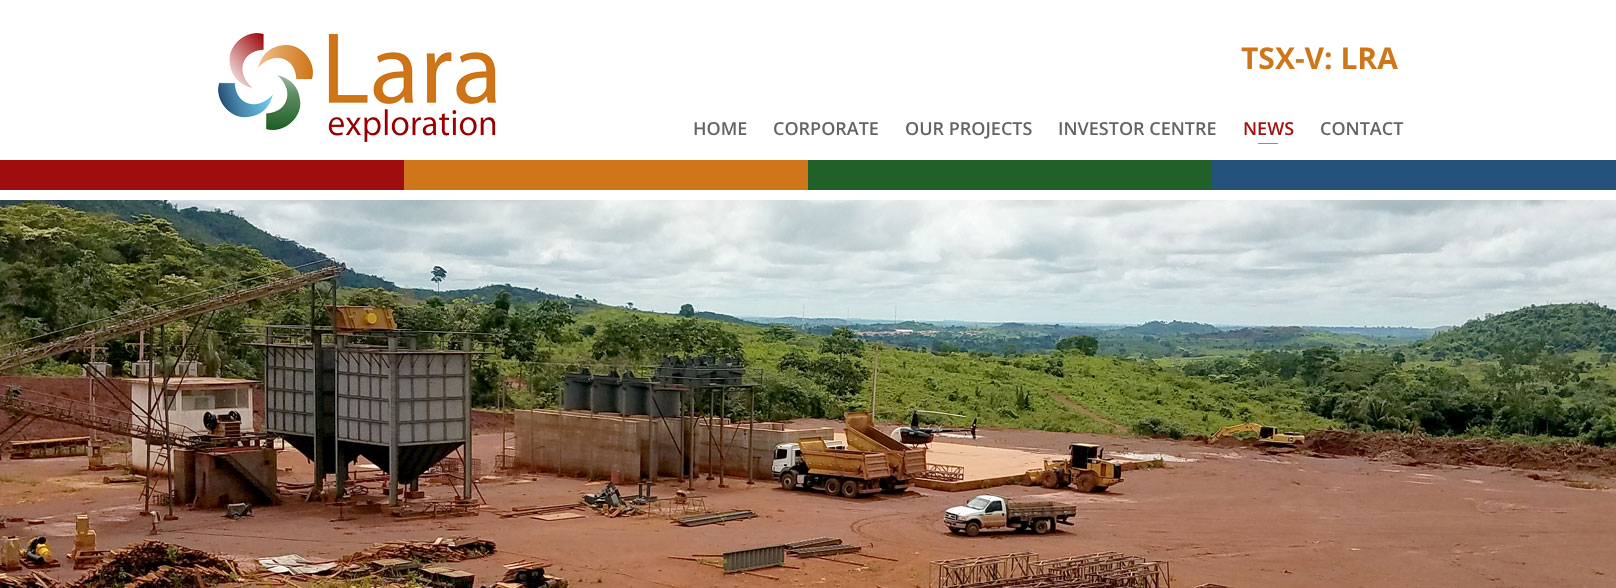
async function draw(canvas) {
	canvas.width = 1616;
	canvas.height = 588;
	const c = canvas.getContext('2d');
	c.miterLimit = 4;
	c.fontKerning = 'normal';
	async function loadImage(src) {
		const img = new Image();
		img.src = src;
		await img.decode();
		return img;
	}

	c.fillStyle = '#fff';
	c.fillRect(0, 0, 1616, 588);
	c.drawImage(await loadImage('img1.png'), 218, 33, 278, 109);
	c.font = 'bold 30px Open Sans';
	c.fillStyle = '#cf761b';
	c.fillText('TSX-V: LRA', 1241, 69);
	c.font = '600 18px Open Sans';
	c.fillStyle = '#646464';
	for (const [text, x, y] of [
		['HOME', 693, 135],
		['CORPORATE', 773, 135],
		['OUR PROJECTS', 905, 135],
		['INVESTOR CENTRE', 1058, 135],
	]) {
		c.fillText(text, x, y);
	}
	c.fillStyle = '#a11111';
	c.fillText('NEWS', 1243, 135);
	c.fillStyle = '#d27f2a';
	c.fillRect(1258, 143, 20, 1);
	c.fillStyle = '#646464';
	c.fillText('CONTACT', 1320, 135);
	for (const [x, y, w, h, color] of [
		[0, 160, 404, 30, '#a00d0e'],
		[404, 160, 404, 30, '#cf761b'],
		[808, 160, 404, 30, '#216028'],
		[1212, 160, 404, 30, '#24527a'],
	]) {
		c.fillStyle = color;
		c.fillRect(x, y, w, h);
	}
	c.drawImage(await loadImage('img2.png'), 0, 200, 1616, 388);
}

draw(document.querySelector('canvas'));
